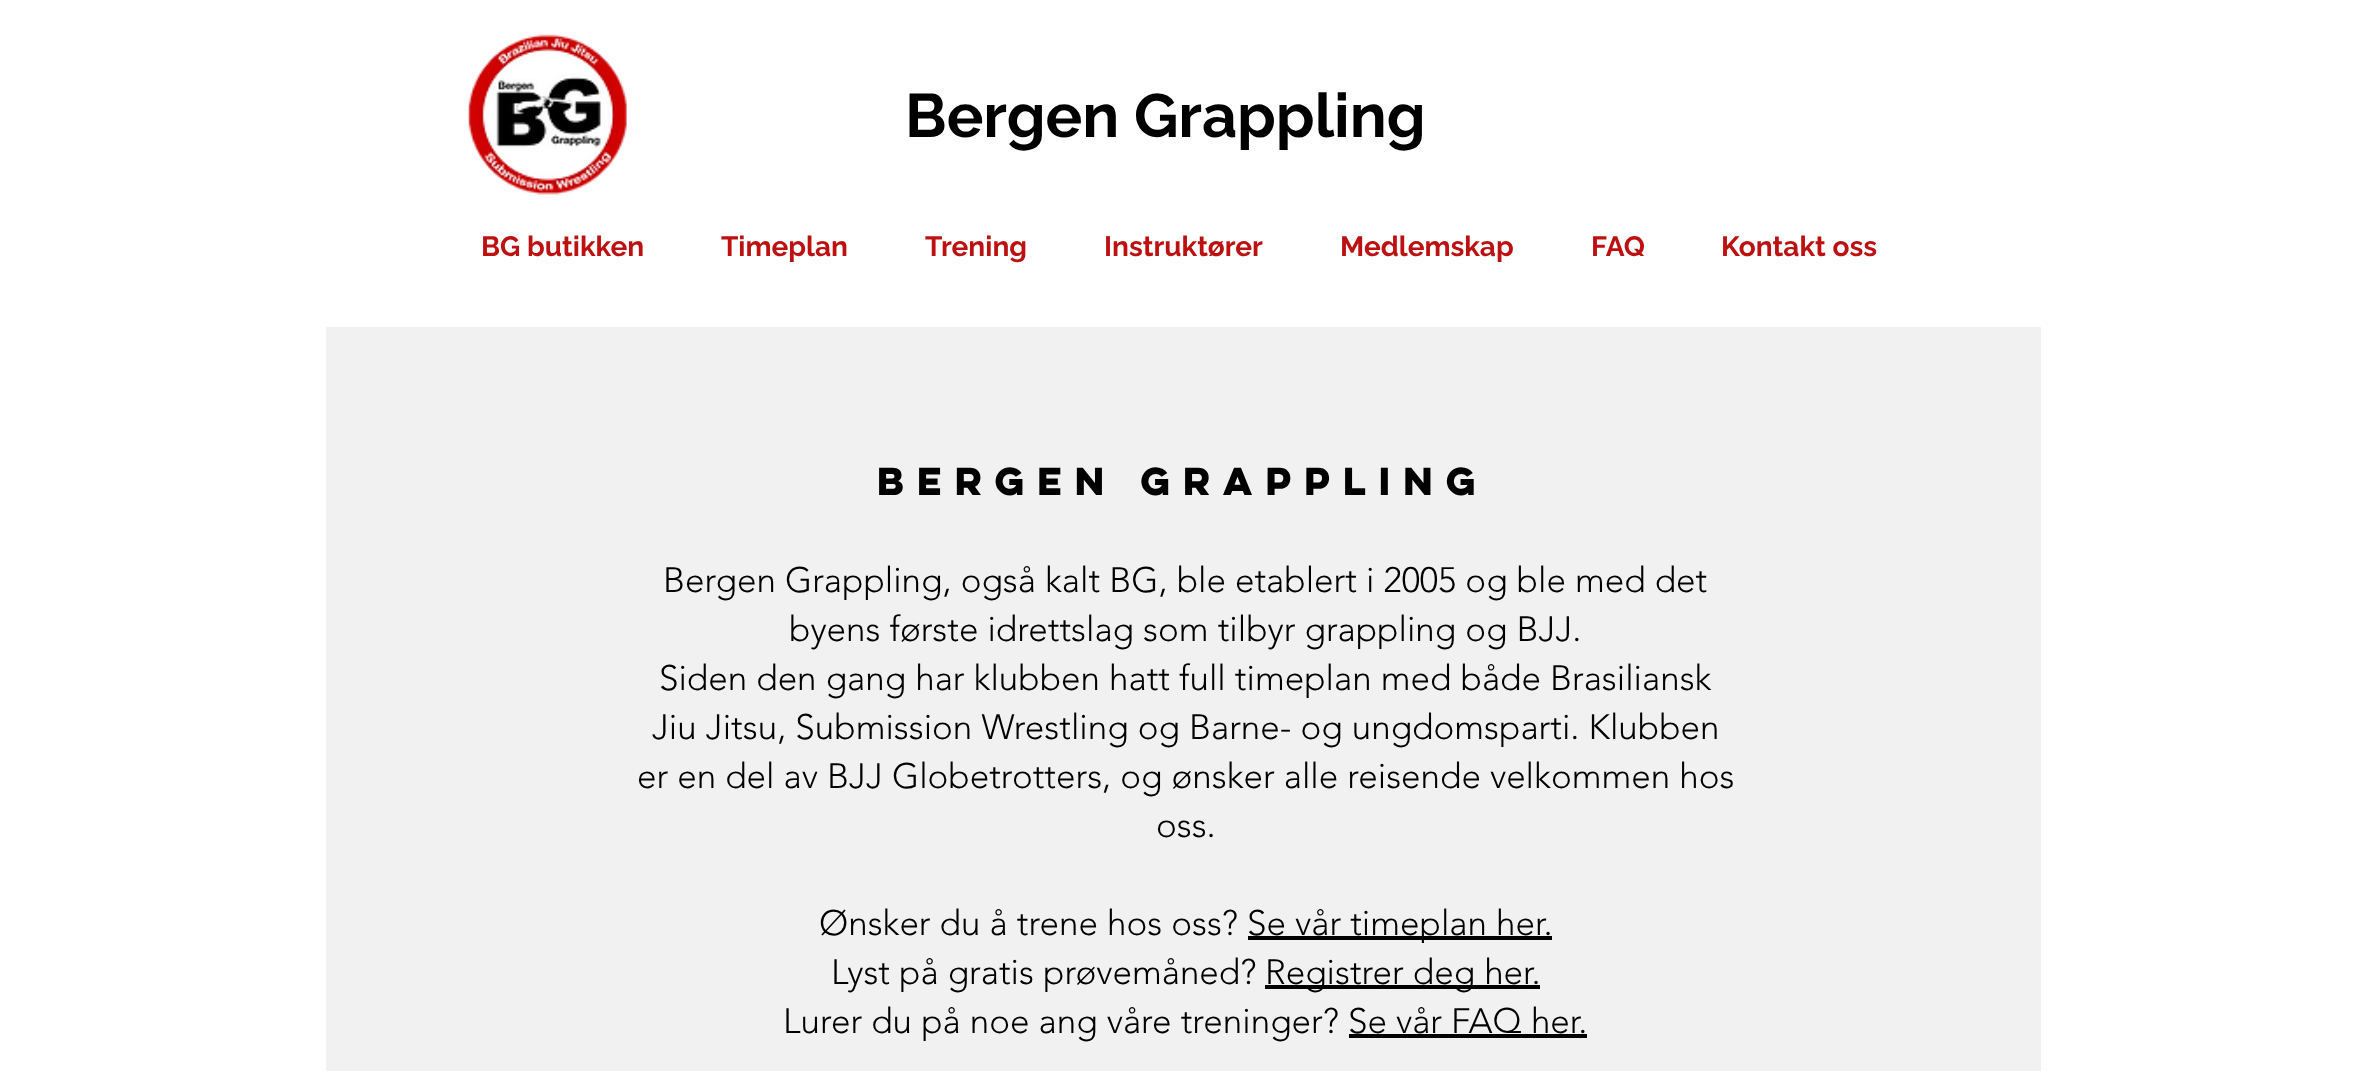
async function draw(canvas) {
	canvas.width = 2365;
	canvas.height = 1071;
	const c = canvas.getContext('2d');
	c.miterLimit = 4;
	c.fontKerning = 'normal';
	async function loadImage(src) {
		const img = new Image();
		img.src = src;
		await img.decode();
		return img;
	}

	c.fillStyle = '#fff';
	c.fillRect(0, 0, 2365, 1071);
	c.drawImage(await loadImage('img1.png'), 467, 34, 160, 161);
	c.font = 'bold 61.25px Raleway';
	c.fillStyle = '#000';
	c.fillText('Bergen Grappling', 905, 137);
	c.font = 'bold 28px Raleway';
	c.fillStyle = '#bd1111';
	for (const [text, x, y] of [
		['BG butikken', 481, 256],
		['Timeplan', 721, 256],
		['Trening', 925, 256],
		['Instruktører', 1104, 256],
		['Medlemskap', 1340, 256],
		['FAQ', 1591, 256],
		['Kontakt oss', 1721, 256],
	]) {
		c.fillText(text, x, y);
	}
	c.fillStyle = '#f1f1f1';
	c.fillRect(326, 327, 1715, 744);
	c.letterSpacing = '5.25px';
	c.font = 'bold 35px "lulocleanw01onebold"';
	c.fillStyle = '#000';
	c.fillText('BErgen Grappling', 877, 495);
	c.letterSpacing = '0px';
	c.font = '300 35px "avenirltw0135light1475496"';
	for (const [text, x, y] of [
		['Bergen Grappling, også kalt BG, ble etablert i 2005 og ble med det', 663, 592],
		['byens første idrettslag som tilbyr grappling og BJJ.', 789, 641],
		['Siden den gang har klubben hatt full timeplan med både Brasiliansk', 659, 690],
		['Jiu Jitsu, Submission Wrestling og Barne- og ungdomsparti. Klubben', 652, 739],
		['er en del av BJJ Globetrotters, og ønsker alle reisende velkommen hos', 637, 788],
		['oss.', 1156, 837],
		['Ønsker du å trene hos oss?', 819, 935],
	]) {
		c.fillText(text, x, y);
	}
	c.fillRect(1248, 936, 304, 4);
	c.fillText('Se vår timeplan her.', 1247, 935);
	c.fillText('Lyst på gratis prøvemåned?', 831, 984);
	c.fillRect(1265, 985, 275, 4);
	c.fillText('Registrer deg her.', 1265, 984);
	c.fillText('Lurer du på noe ang våre treninger? Se vår FAQ her.', 783, 1033);
	c.fillRect(1349, 1034, 238, 4);
}

draw(document.querySelector('canvas'));
